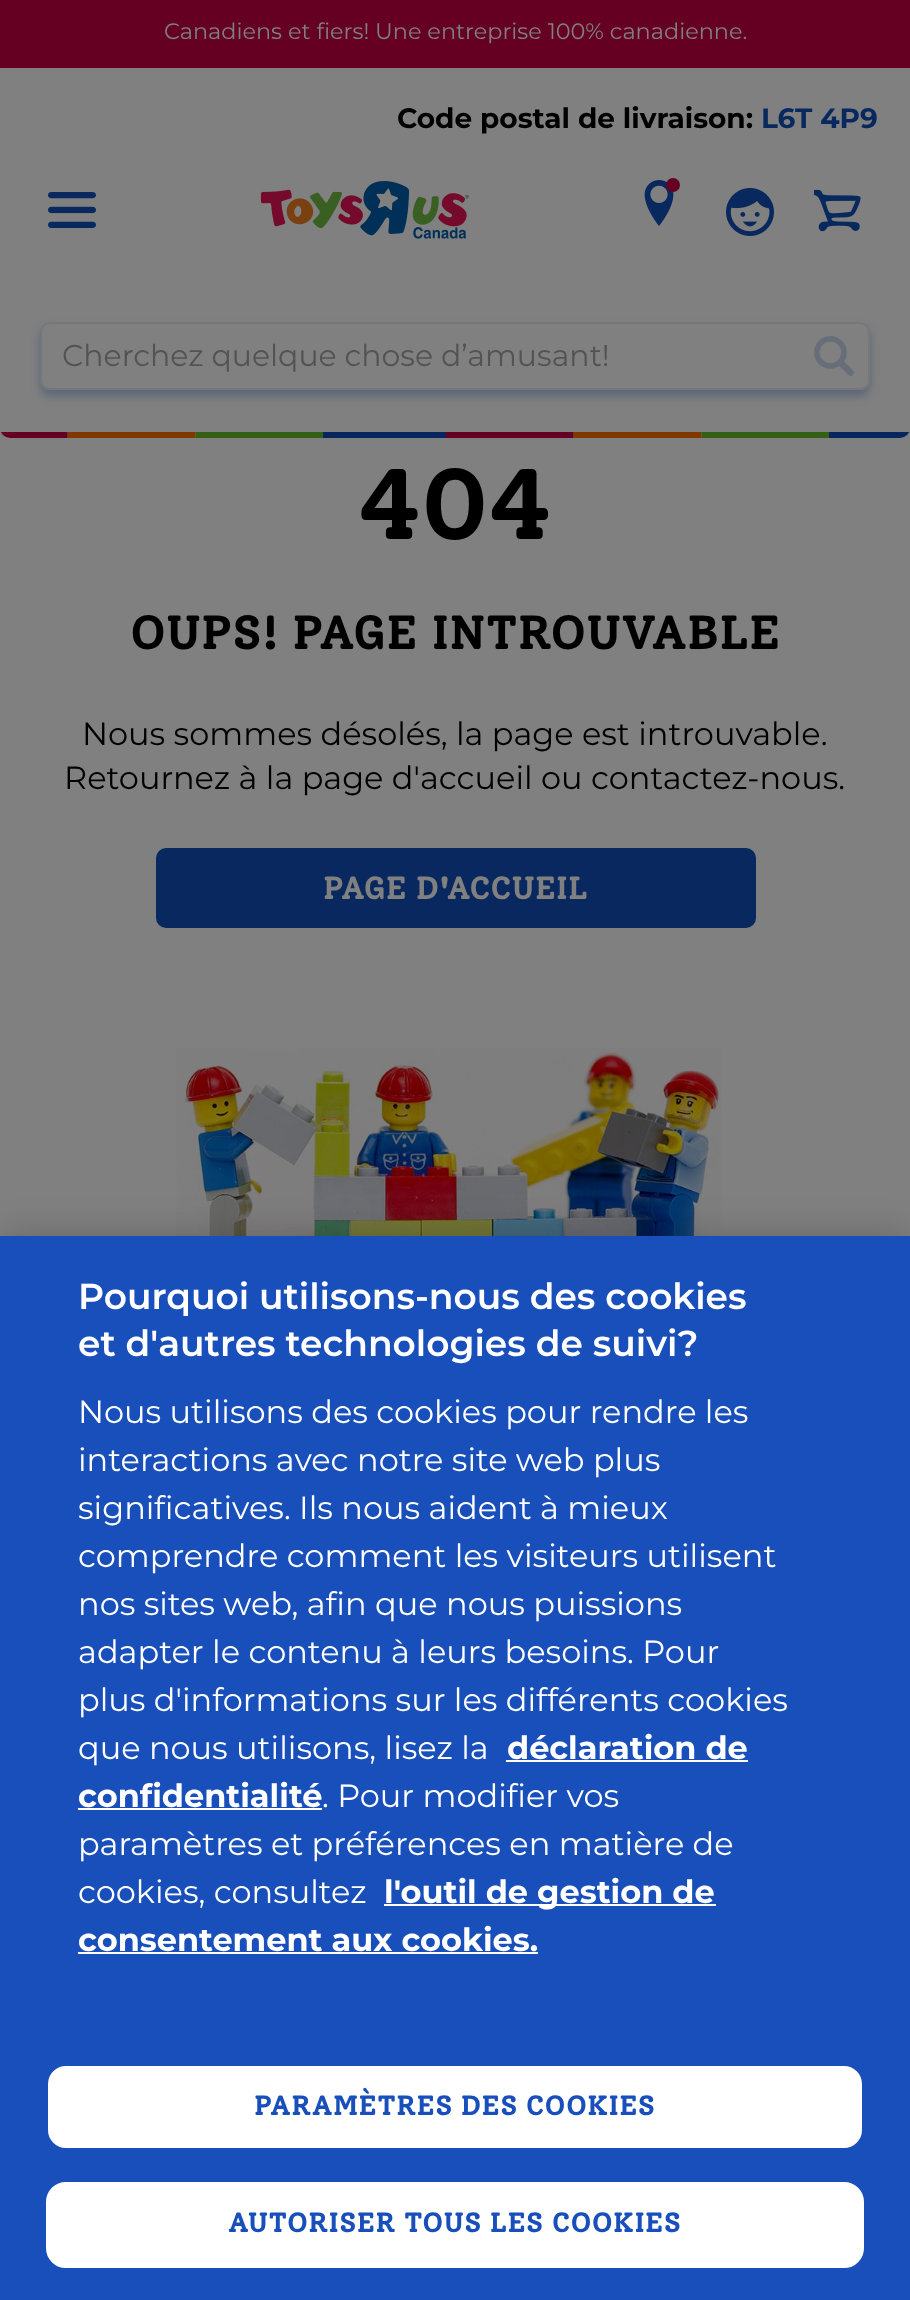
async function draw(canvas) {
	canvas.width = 910;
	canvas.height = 2300;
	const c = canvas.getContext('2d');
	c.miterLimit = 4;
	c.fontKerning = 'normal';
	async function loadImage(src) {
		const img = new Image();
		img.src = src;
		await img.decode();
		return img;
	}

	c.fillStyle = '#808080';
	c.fillRect(0, 0, 910, 2300);
	c.fillStyle = '#602';
	c.fillRect(0, 0, 910, 68);
	c.font = '22.4px Montserrat';
	c.fillStyle = '#808080';
	c.fillText('Canadiens et fiers! Une entreprise 100% canadienne.', 164, 39);
	c.font = 'bold 28px Montserrat';
	c.fillStyle = '#000';
	c.fillText('Code postal de livraison:', 397, 128);
	c.fillStyle = '#08285f';
	c.fillText('L6T 4P9', 761, 128);
	c.drawImage(await loadImage('img1.png'), 48, 192, 48, 36);
	c.drawImage(await loadImage('img2.png'), 260, 181, 209, 58);
	c.drawImage(await loadImage('img3.png'), 644, 180, 30, 46);
	c.fillStyle = '#602';
	c.beginPath();
	c.arc(673, 185, 7, 0, 2 * Math.PI);
	c.fill();
	c.drawImage(await loadImage('img4.png'), 726, 188, 48, 48);
	c.drawImage(await loadImage('img5.png'), 814, 189, 47, 43);
	c.save();
	c.beginPath();
	c.moveTo(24, 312);
	c.lineTo(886, 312);
	c.lineTo(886, 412);
	c.lineTo(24, 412);
	c.closePath();
	c.moveTo(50, 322);
	c.lineTo(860, 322);
	c.bezierCurveTo(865.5, 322, 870, 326.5, 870, 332);
	c.lineTo(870, 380);
	c.bezierCurveTo(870, 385.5, 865.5, 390, 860, 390);
	c.lineTo(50, 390);
	c.bezierCurveTo(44.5, 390, 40, 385.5, 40, 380);
	c.lineTo(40, 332);
	c.bezierCurveTo(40, 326.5, 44.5, 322, 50, 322);
	c.closePath();
	c.clip('evenodd');
	c.fillStyle = '#08285f4d';
	c.filter = 'blur(5px)';
	c.beginPath();
	c.roundRect(40, 328, 830, 68, 10);
	c.fill();
	c.filter = 'none';
	c.restore();
	c.beginPath();
	c.roundRect(41, 323, 828, 66, 9);
	c.strokeStyle = '#74777c';
	c.lineWidth = 2;
	c.stroke();
	c.font = '30px Montserrat';
	c.fillStyle = '#535353';
	c.fillText('Cherchez quelque chose d’amusant!', 62, 366);
	c.drawImage(await loadImage('img6.png'), 814, 336, 40, 40);
	c.drawImage(await loadImage('img7.png'), 0, 432, 910, 6);
	c.font = 'bold 100px Solway';
	c.fillStyle = '#000';
	c.fillText('404', 358, 539);
	c.font = 'bold 48px Solway';
	c.fillText('OUPS! PAGE INTROUVABLE', 130, 649);
	c.font = '32px Montserrat';
	c.fillText('Nous sommes désolés, la page est introuvable.', 82, 745);
	c.fillText('Retournez à la page d\'accueil ou contactez-nous.', 64, 789);
	c.fillStyle = '#08285f';
	c.beginPath();
	c.roundRect(156, 848, 600, 80, 10);
	c.fill();
	c.font = 'bold 32px Solway';
	c.fillStyle = '#808080';
	c.fillText('PAGE D\'ACCUEIL', 323, 899);
	c.drawImage(await loadImage('img8.png'), 176, 1048, 545, 188);
	c.fillStyle = '#00000033';
	c.filter = 'blur(18px)';
	c.beginPath();
	c.rect(0, 1236, 910, 1064);
	c.fill();
	c.filter = 'none';
	c.fillStyle = '#184fbb';
	c.fillRect(0, 1236, 910, 1064);
	c.font = '600 36px Montserrat';
	c.fillStyle = '#fff';
	c.fillText('Pourquoi utilisons-nous des cookies', 78, 1309);
	c.fillText('et d\'autres technologies de suivi?', 78, 1356);
	c.font = '32px Montserrat';
	for (const [text, x, y] of [
		['Nous utilisons des cookies pour rendre les', 78, 1423],
		['interactions avec notre site web plus', 78, 1471],
		['significatives. Ils nous aident à mieux', 78, 1519],
		['comprendre comment les visiteurs utilisent', 78, 1567],
		['nos sites web, afin que nous puissions', 78, 1615],
		['adapter le contenu à leurs besoins. Pour', 78, 1663],
		['plus d\'informations sur les différents cookies', 78, 1711],
		['que nous utilisons, lisez la', 78, 1759],
	]) {
		c.fillText(text, x, y);
	}
	c.font = 'bold 32px Montserrat';
	c.fillText('déclaration de', 507, 1759);
	c.fillRect(506, 1760, 242, 2);
	c.fillText('confidentialité', 78, 1807);
	c.fillRect(78, 1808, 244, 2);
	c.font = '32px Montserrat';
	for (const [text, x, y] of [
		['. Pour modifier vos', 322, 1807],
		['paramètres et préférences en matière de', 78, 1855],
		['cookies, consultez', 78, 1903],
	]) {
		c.fillText(text, x, y);
	}
	c.fillRect(384, 1904, 332, 2);
	c.font = 'bold 32px Montserrat';
	c.fillText('l\'outil de gestion de', 384, 1903);
	c.fillText('consentement aux cookies.', 78, 1951);
	c.fillRect(78, 1952, 460, 2);
	c.beginPath();
	c.roundRect(47, 2065, 816, 84, 19);
	c.fill();
	c.strokeStyle = '#184fbb';
	c.stroke();
	c.letterSpacing = '0.25px';
	c.font = 'bold 28px Solway';
	c.fillStyle = '#184fbb';
	c.fillText('PARAMÈTRES DES COOKIES', 254, 2115);
	c.fillStyle = '#fff';
	c.beginPath();
	c.roundRect(47, 2183, 816, 84, 19);
	c.fill();
	c.strokeStyle = '#fff';
	c.stroke();
	c.fillStyle = '#184fbb';
	c.fillText('AUTORISER TOUS LES COOKIES', 228, 2232);
}

draw(document.querySelector('canvas'));
